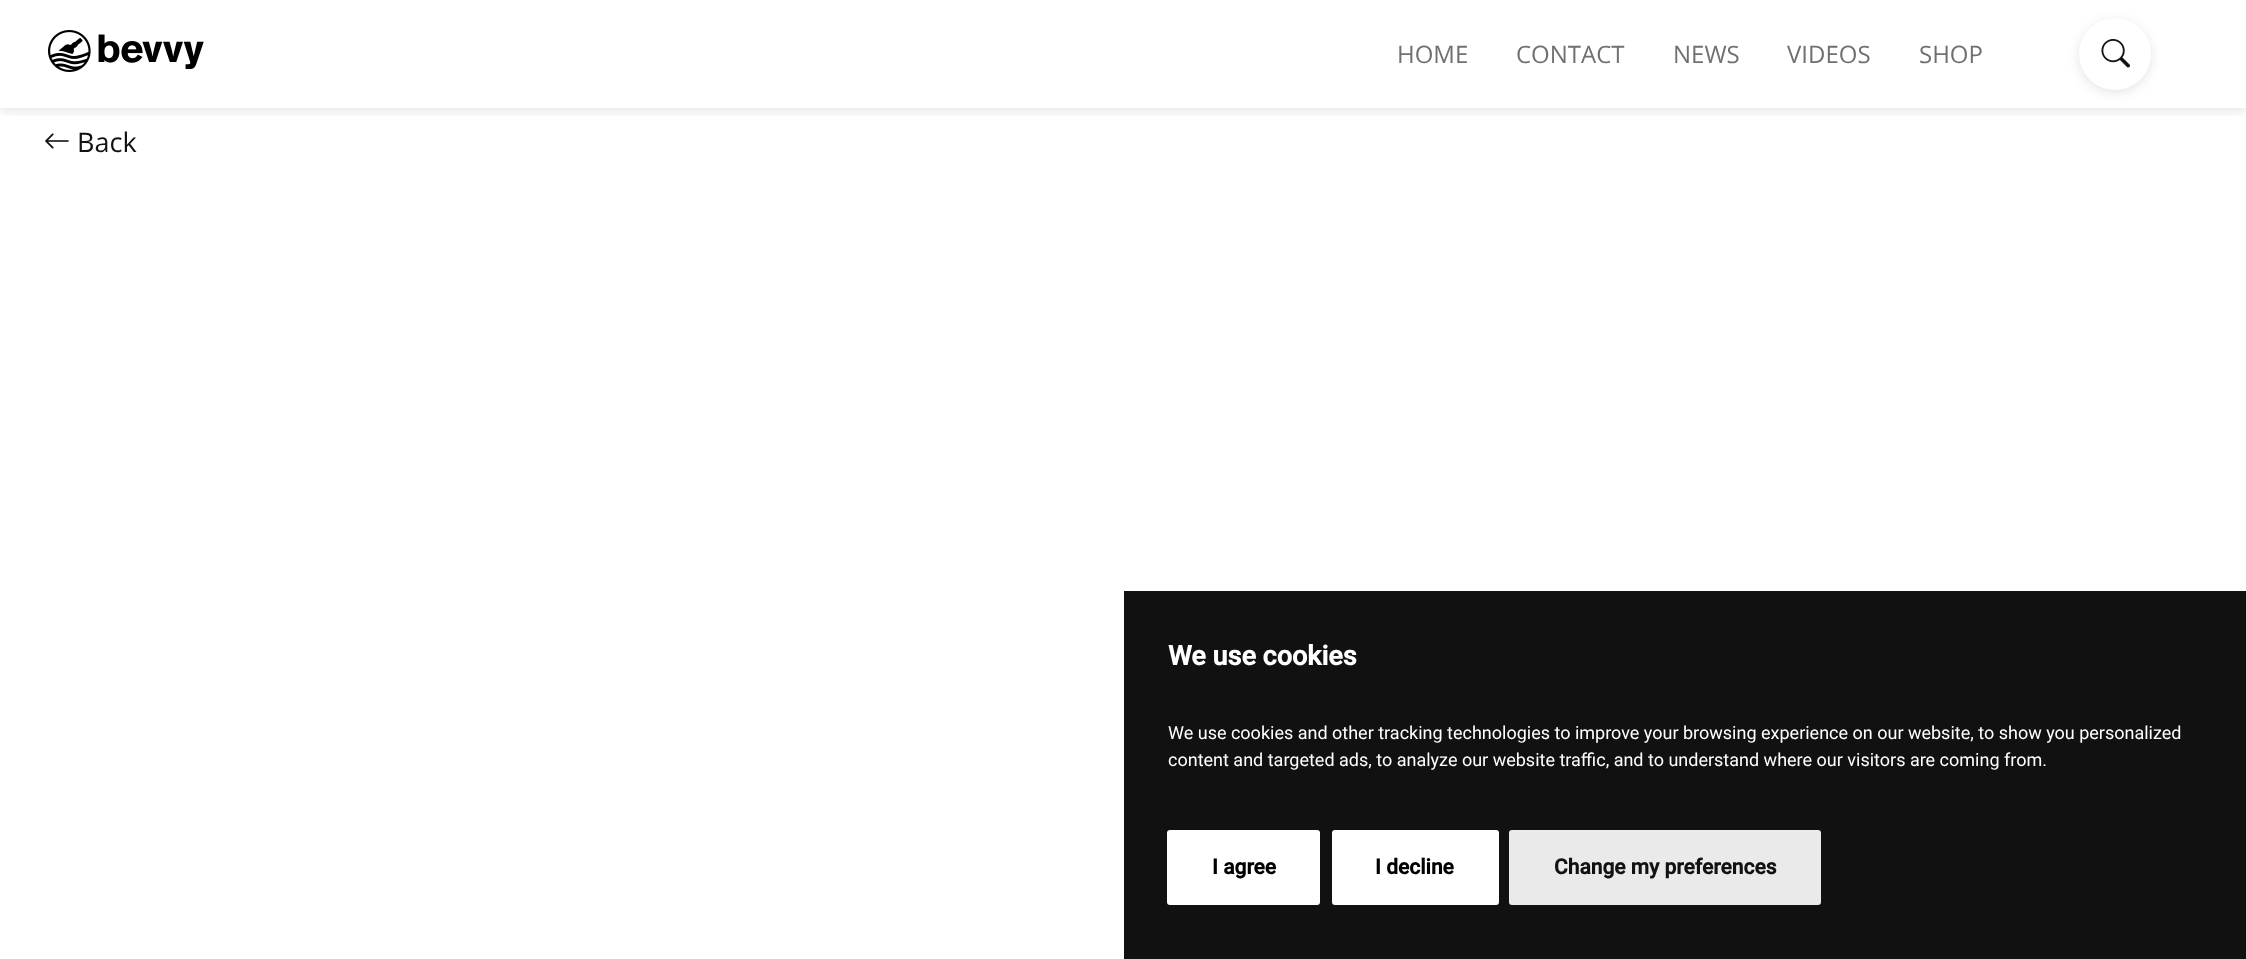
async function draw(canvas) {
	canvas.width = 2246;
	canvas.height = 959;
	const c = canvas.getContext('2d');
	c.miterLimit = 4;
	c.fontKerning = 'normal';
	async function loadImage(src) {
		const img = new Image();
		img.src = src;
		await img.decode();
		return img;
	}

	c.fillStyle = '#fff';
	c.fillRect(0, 0, 2246, 959);
	c.save();
	c.beginPath();
	c.rect(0, 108, 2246, 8);
	c.clip();
	c.fillStyle = '#0000001a';
	c.filter = 'blur(6px)';
	c.beginPath();
	c.rect(0, 3, 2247, 108);
	c.fill();
	c.filter = 'none';
	c.restore();
	c.drawImage(await loadImage('img1.png'), 48, 30, 156, 42);
	c.font = '24px Open Sans';
	c.fillStyle = '#707070';
	for (const [text, x, y] of [
		['HOME', 1397, 63],
		['CONTACT', 1516, 63],
		['NEWS', 1673, 63],
		['VIDEOS', 1787, 63],
		['SHOP', 1919, 63],
	]) {
		c.fillText(text, x, y);
	}
	c.fillStyle = '#0000001a';
	c.filter = 'blur(6px)';
	c.beginPath();
	c.roundRect(2079, 21, 72, 72, 36);
	c.fill();
	c.filter = 'none';
	c.fillStyle = '#fff';
	c.beginPath();
	c.arc(2115, 54, 36, 0, 2 * Math.PI);
	c.fill();
	c.drawImage(await loadImage('img2.png'), 2101, 39, 29, 29);
	c.drawImage(await loadImage('img3.png'), 45, 133, 24, 16);
	c.font = '27px Open Sans';
	c.fillStyle = '#121212';
	c.fillText('Back', 77, 152);
	c.fillStyle = '#111';
	c.fillRect(1124, 591, 1122, 368);
	c.font = 'bold 27px Roboto';
	c.fillStyle = '#fff';
	c.fillText('We use cookies', 1168, 665);
	c.font = '18px Roboto';
	c.fillText('We use cookies and other tracking technologies to improve your browsing experience on our website, to show you personalized', 1168, 739);
	c.fillText('content and targeted ads, to analyze our website traffic, and to understand where our visitors are coming from.', 1168, 766);
	c.beginPath();
	c.roundRect(1167, 830, 153, 75, 3);
	c.fill();
	c.font = 'bold 21px Roboto';
	c.fillStyle = '#000';
	c.fillText('I agree', 1212, 874);
	c.fillStyle = '#fff';
	c.beginPath();
	c.roundRect(1332, 830, 167, 75, 3);
	c.fill();
	c.fillStyle = '#000';
	c.fillText('I decline', 1375, 874);
	c.fillStyle = '#eaeaea';
	c.beginPath();
	c.roundRect(1509, 830, 312, 75, 3);
	c.fill();
	c.fillStyle = '#121212';
	c.fillText('Change my preferences', 1554, 874);
}

draw(document.querySelector('canvas'));
